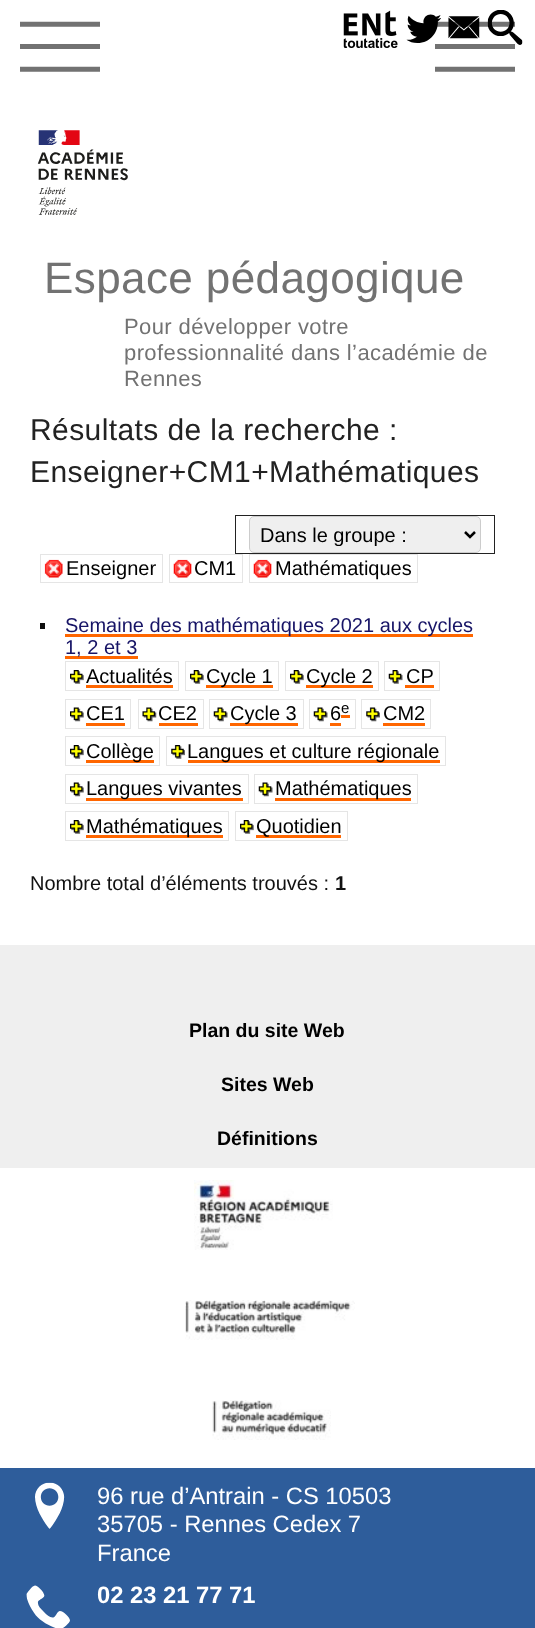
async function draw(canvas) {
	canvas.width = 535;
	canvas.height = 1628;
	const c = canvas.getContext('2d');
	c.miterLimit = 4;
	c.fontKerning = 'normal';
	async function loadImage(src) {
		const img = new Image();
		img.src = src;
		await img.decode();
		return img;
	}

	c.fillStyle = '#fff';
	c.fillRect(0, 0, 535, 1628);
	c.drawImage(await loadImage('img1.png'), 343, 10, 55, 38);
	c.drawImage(await loadImage('img5.png'), 435, 21, 80, 51);
	c.drawImage(await loadImage('img2.png'), 406, 14, 35, 29);
	c.drawImage(await loadImage('img3.png'), 448, 16, 32, 23);
	c.drawImage(await loadImage('img4.png'), 487, 10, 36, 35);
	c.drawImage(await loadImage('img5.png'), 20, 21, 80, 51);
	c.drawImage(await loadImage('img6.png'), 37, 130, 91, 85);
	c.letterSpacing = '0.4px';
	c.font = '44px Liberation Sans';
	c.fillStyle = '#727272';
	c.fillText('Espace pédagogique', 44, 293);
	c.font = '22px Liberation Sans';
	for (const [text, x, y] of [
		['Pour développer votre', 124, 334],
		['professionnalité dans l’académie de', 124, 360],
		['Rennes', 124, 386],
	]) {
		c.fillText(text, x, y);
	}
	c.font = '30px Liberation Sans';
	c.fillStyle = '#222';
	c.fillText('Résultats de la recherche :', 30, 440);
	c.fillText('Enseigner+CM1+Mathématiques', 30, 482);
	c.strokeStyle = '#222';
	c.strokeRect(235.5, 515.5, 259, 38);
	c.fillStyle = '#efefef';
	c.beginPath();
	c.roundRect(249.5, 516.5, 231, 36, 4.5);
	c.fill();
	c.strokeStyle = '#ccc';
	c.stroke();
	c.beginPath();
	c.moveTo(465, 532);
	c.lineTo(470, 537);
	c.lineTo(475, 532);
	c.strokeStyle = '#000';
	c.lineWidth = 2.5;
	c.stroke();
	c.save();
	c.beginPath();
	c.rect(260, 523, 195, 23);
	c.clip();
	c.letterSpacing = '0px';
	c.font = '20px Liberation Sans';
	c.fillStyle = '#000';
	c.fillText('Dans le groupe :', 260, 542);
	c.restore();
	c.drawImage(await loadImage('img7.png'), 44, 559, 19, 19);
	c.strokeStyle = '#e5e5e5';
	c.lineWidth = 1;
	c.strokeRect(40.5, 554.5, 122, 28);
	c.letterSpacing = '0px';
	c.font = '20px Liberation Sans';
	c.fillStyle = '#000';
	c.fillText('Enseigner', 66, 575);
	c.drawImage(await loadImage('img8.png'), 173, 559, 19, 19);
	c.strokeRect(169.5, 554.5, 73, 28);
	c.fillText('CM1', 194, 575);
	c.drawImage(await loadImage('img8.png'), 253, 559, 19, 19);
	c.strokeRect(249.5, 554.5, 168, 28);
	c.fillText('Mathématiques', 275, 575);
	c.fillStyle = '#0e0e0e';
	c.fillRect(40, 623, 5, 6);
	c.fillStyle = '#f60';
	c.fillRect(65, 634, 408, 3);
	c.fillStyle = '#171466';
	c.fillText('Semaine des mathématiques 2021 aux cycles', 65, 632);
	c.fillStyle = '#f60';
	c.fillRect(65, 656, 73, 3);
	c.fillStyle = '#171466';
	c.fillText('1, 2 et 3', 65, 654);
	c.drawImage(await loadImage('img9.png'), 70, 670, 14, 14);
	c.strokeRect(65.5, 661.5, 113, 29);
	c.fillStyle = '#000';
	c.fillText('Actualités', 86, 683);
	c.fillStyle = '#f60';
	c.fillRect(86, 685, 87, 3);
	c.drawImage(await loadImage('img9.png'), 190, 670, 14, 14);
	c.strokeRect(185.5, 661.5, 93, 29);
	c.fillRect(206, 685, 67, 3);
	c.fillStyle = '#000';
	c.fillText('Cycle 1', 206, 683);
	c.drawImage(await loadImage('img10.png'), 290, 670, 14, 14);
	c.strokeRect(285.5, 661.5, 93, 29);
	c.fillStyle = '#f60';
	c.fillRect(306, 685, 67, 3);
	c.fillStyle = '#000';
	c.fillText('Cycle 2', 306, 683);
	c.drawImage(await loadImage('img11.png'), 388, 670, 15, 14);
	c.strokeRect(384.5, 661.5, 55, 29);
	c.fillText('CP', 406, 683);
	c.fillStyle = '#f60';
	c.fillRect(405, 685, 29, 3);
	c.drawImage(await loadImage('img12.png'), 70, 707, 14, 15);
	c.strokeRect(65.5, 699.5, 65, 29);
	c.fillStyle = '#000';
	c.fillText('CE1', 86, 720);
	c.fillStyle = '#f60';
	c.fillRect(86, 723, 39, 3);
	c.drawImage(await loadImage('img13.png'), 142, 707, 15, 15);
	c.strokeRect(138.5, 699.5, 65, 29);
	c.fillStyle = '#000';
	c.fillText('CE2', 158, 720);
	c.fillStyle = '#f60';
	c.fillRect(159, 723, 39, 3);
	c.drawImage(await loadImage('img14.png'), 213, 707, 15, 15);
	c.strokeRect(209.5, 699.5, 94, 29);
	c.fillRect(230, 723, 68, 3);
	c.fillStyle = '#000';
	c.fillText('Cycle 3', 230, 720);
	c.drawImage(await loadImage('img14.png'), 313, 707, 15, 15);
	c.strokeRect(309.5, 699.5, 46, 29);
	c.fillText('6', 330, 720);
	c.fillStyle = '#f60';
	c.fillRect(330, 723, 11, 3);
	c.font = '15px Liberation Sans';
	c.fillStyle = '#000';
	c.fillText('e', 341, 713);
	c.fillStyle = '#f60';
	c.fillRect(341, 715, 9, 3);
	c.drawImage(await loadImage('img15.png'), 366, 707, 14, 15);
	c.strokeRect(361.5, 699.5, 69, 29);
	c.font = '20px Liberation Sans';
	c.fillStyle = '#000';
	c.fillText('CM2', 383, 720);
	c.fillStyle = '#f60';
	c.fillRect(383, 723, 42, 3);
	c.drawImage(await loadImage('img9.png'), 70, 745, 14, 14);
	c.strokeRect(65.5, 736.5, 94, 29);
	c.fillRect(86, 760, 68, 3);
	c.fillStyle = '#000';
	c.fillText('Collège', 86, 758);
	c.drawImage(await loadImage('img16.png'), 171, 745, 14, 14);
	c.strokeRect(166.5, 736.5, 279, 29);
	c.fillStyle = '#f60';
	c.fillRect(188, 760, 252, 3);
	c.fillStyle = '#000';
	c.fillText('Langues et culture régionale', 187, 758);
	c.drawImage(await loadImage('img12.png'), 70, 782, 14, 15);
	c.strokeRect(65.5, 774.5, 183, 29);
	c.fillStyle = '#f60';
	c.fillRect(86, 798, 157, 3);
	c.fillStyle = '#000';
	c.fillText('Langues vivantes', 86, 795);
	c.drawImage(await loadImage('img14.png'), 258, 782, 15, 15);
	c.strokeRect(254.5, 774.5, 163, 29);
	c.fillStyle = '#f60';
	c.fillRect(275, 798, 136, 3);
	c.fillStyle = '#000';
	c.fillText('Mathématiques', 275, 795);
	c.drawImage(await loadImage('img9.png'), 70, 820, 14, 14);
	c.strokeRect(65.5, 811.5, 163, 29);
	c.fillStyle = '#f60';
	c.fillRect(86, 835, 137, 3);
	c.fillStyle = '#000';
	c.fillText('Mathématiques', 86, 833);
	c.drawImage(await loadImage('img9.png'), 240, 820, 14, 14);
	c.strokeRect(235.5, 811.5, 112, 29);
	c.fillStyle = '#f60';
	c.fillRect(256, 835, 85, 3);
	c.fillStyle = '#000';
	c.fillText('Quotidien', 256, 833);
	c.fillStyle = '#111';
	c.fillText('Nombre total d’éléments trouvés :', 30, 890);
	c.font = 'bold 20px Liberation Sans';
	c.fillText('1', 335, 890);
	c.fillStyle = '#efefef';
	c.fillRect(0, 945, 535, 223);
	c.fillStyle = '#2e5d9b';
	c.fillRect(0, 1468, 535, 160);
	c.font = 'bold 19.5px Liberation Sans';
	c.fillStyle = '#000';
	for (const [text, x, y] of [
		['Plan du site Web', 189, 1037],
		['Sites Web', 221, 1091],
		['Définitions', 217, 1145],
	]) {
		c.fillText(text, x, y);
	}
	c.drawImage(await loadImage('img17.png'), 194, 1180, 139, 70);
	c.drawImage(await loadImage('img18.png'), 185, 1300, 170, 40);
	c.drawImage(await loadImage('img19.png'), 212, 1400, 119, 40);
	c.drawImage(await loadImage('img20.png'), 35, 1482, 30, 47);
	c.font = '23.75px Liberation Sans';
	c.fillStyle = '#fff';
	for (const [text, x, y] of [
		['96 rue d’Antrain - CS 10503', 97, 1504],
		['35705 - Rennes Cedex 7', 97, 1532],
		['France', 97, 1561],
	]) {
		c.fillText(text, x, y);
	}
	c.drawImage(await loadImage('img21.png'), 26, 1585, 44, 43);
	c.font = 'bold 23.75px Liberation Sans';
	c.fillText('02 23 21 77 71', 97, 1603);
}

draw(document.querySelector('canvas'));
